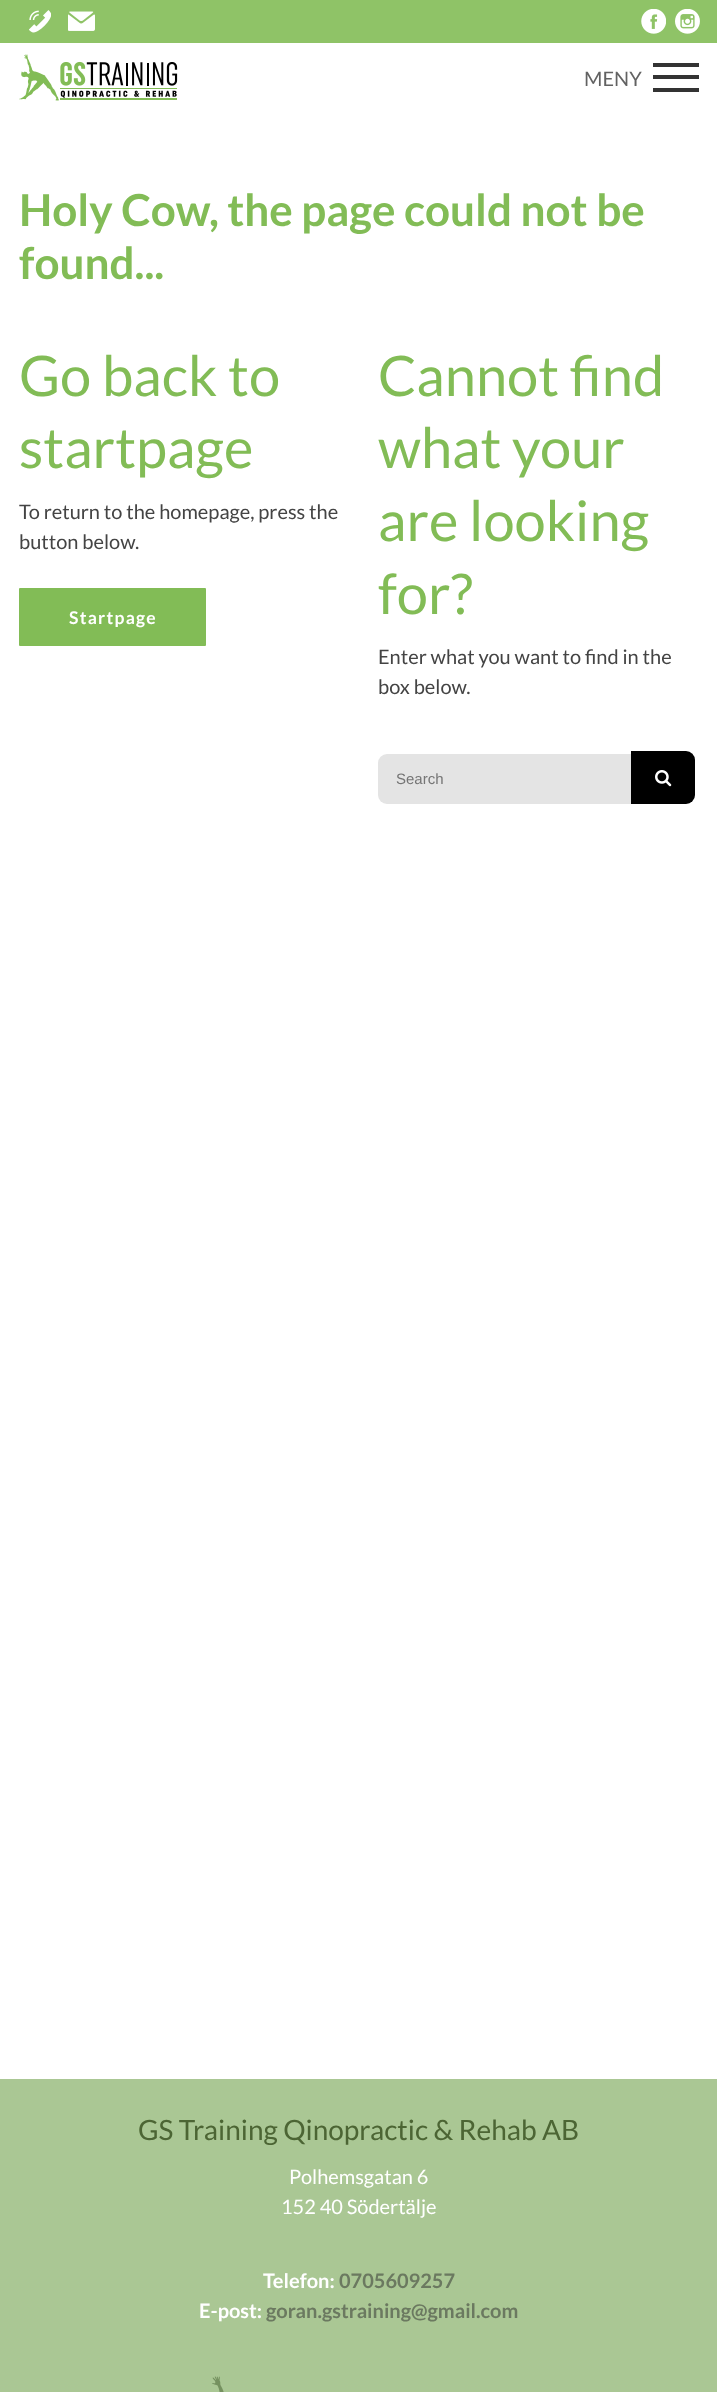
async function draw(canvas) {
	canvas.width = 717;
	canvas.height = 2392;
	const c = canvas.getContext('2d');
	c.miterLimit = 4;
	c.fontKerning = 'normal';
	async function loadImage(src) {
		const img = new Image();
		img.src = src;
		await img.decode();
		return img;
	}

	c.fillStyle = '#fff';
	c.fillRect(0, 0, 717, 2392);
	c.fillStyle = '#8fc367';
	c.fillRect(0, 0, 717, 43);
	c.drawImage(await loadImage('img1.png'), 29, 10, 22, 23);
	c.drawImage(await loadImage('img2.png'), 68, 11, 27, 20);
	c.drawImage(await loadImage('img3.png'), 641, 9, 25, 25);
	c.drawImage(await loadImage('img4.png'), 675, 9, 25, 25);
	c.drawImage(await loadImage('img5.png'), 19, 54, 159, 47);
	c.fillStyle = '#333';
	c.fillRect(653, 63, 46, 4);
	c.font = '20px Lato';
	c.fillStyle = '#626262';
	c.fillText('MENY', 584, 86);
	c.fillStyle = '#333';
	c.fillRect(653, 75, 46, 4);
	c.fillRect(653, 88, 46, 4);
	c.font = 'bold 44px Lato';
	c.fillStyle = '#82bc56';
	c.fillText('Holy Cow, the page could not be', 19, 226);
	c.fillText('found...', 19, 279);
	c.font = '56px Lato';
	c.fillText('Go back to', 19, 396);
	c.fillText('startpage', 19, 468);
	c.font = '20px Lato';
	c.fillStyle = '#444';
	c.fillText('To return to the homepage, press the', 19, 519);
	c.fillText('button below.', 19, 549);
	c.fillStyle = '#82bc56';
	c.beginPath();
	c.roundRect(19, 588, 187, 58, 1);
	c.fill();
	c.letterSpacing = '1.25px';
	c.font = 'bold 17.5px Lato';
	c.fillStyle = '#fff';
	c.fillText('Startpage', 69, 624);
	c.letterSpacing = '0px';
	c.font = '56px Lato';
	c.fillStyle = '#82bc56';
	for (const [text, x, y] of [
		['Cannot find', 378, 396],
		['what your', 378, 468],
		['are looking', 378, 541],
		['for?', 378, 614],
	]) {
		c.fillText(text, x, y);
	}
	c.font = '20px Lato';
	c.fillStyle = '#444';
	c.fillText('Enter what you want to find in the', 378, 664);
	c.fillText('box below.', 378, 694);
	c.fillStyle = '#e4e4e4';
	c.beginPath();
	c.roundRect(378, 754, 257, 50, [9, 0, 0, 9]);
	c.fill();
	c.font = '15px Liberation Sans';
	c.fillStyle = '#757575';
	c.fillText('Search', 396, 784);
	c.fillStyle = '#000';
	c.beginPath();
	c.roundRect(631, 751, 64, 53, [0, 9, 9, 0]);
	c.fill();
	c.drawImage(await loadImage('img6.png'), 655, 770, 17, 17);
	c.fillStyle = '#aac794';
	c.fillRect(0, 2079, 717, 313);
	c.font = '28px Lato';
	c.fillStyle = '#4c6534';
	c.fillText('GS Training Qinopractic & Rehab AB', 138, 2140);
	c.font = '20px Lato';
	c.fillStyle = '#fff';
	c.fillText('Polhemsgatan 6', 289, 2184);
	c.fillText('152 40 Södertälje', 281, 2214);
	c.font = 'bold 20px Lato';
	c.fillText('Telefon:', 263, 2288);
	c.fillStyle = '#6b7960';
	c.fillText('0705609257', 339, 2288);
	c.fillStyle = '#fff';
	c.fillText('E-post:', 199, 2318);
	c.fillStyle = '#6b7960';
	c.fillText('goran.gstraining@gmail.com', 266, 2318);
	c.drawImage(await loadImage('img7.png'), 212, 2376, 12, 16);
}

draw(document.querySelector('canvas'));
